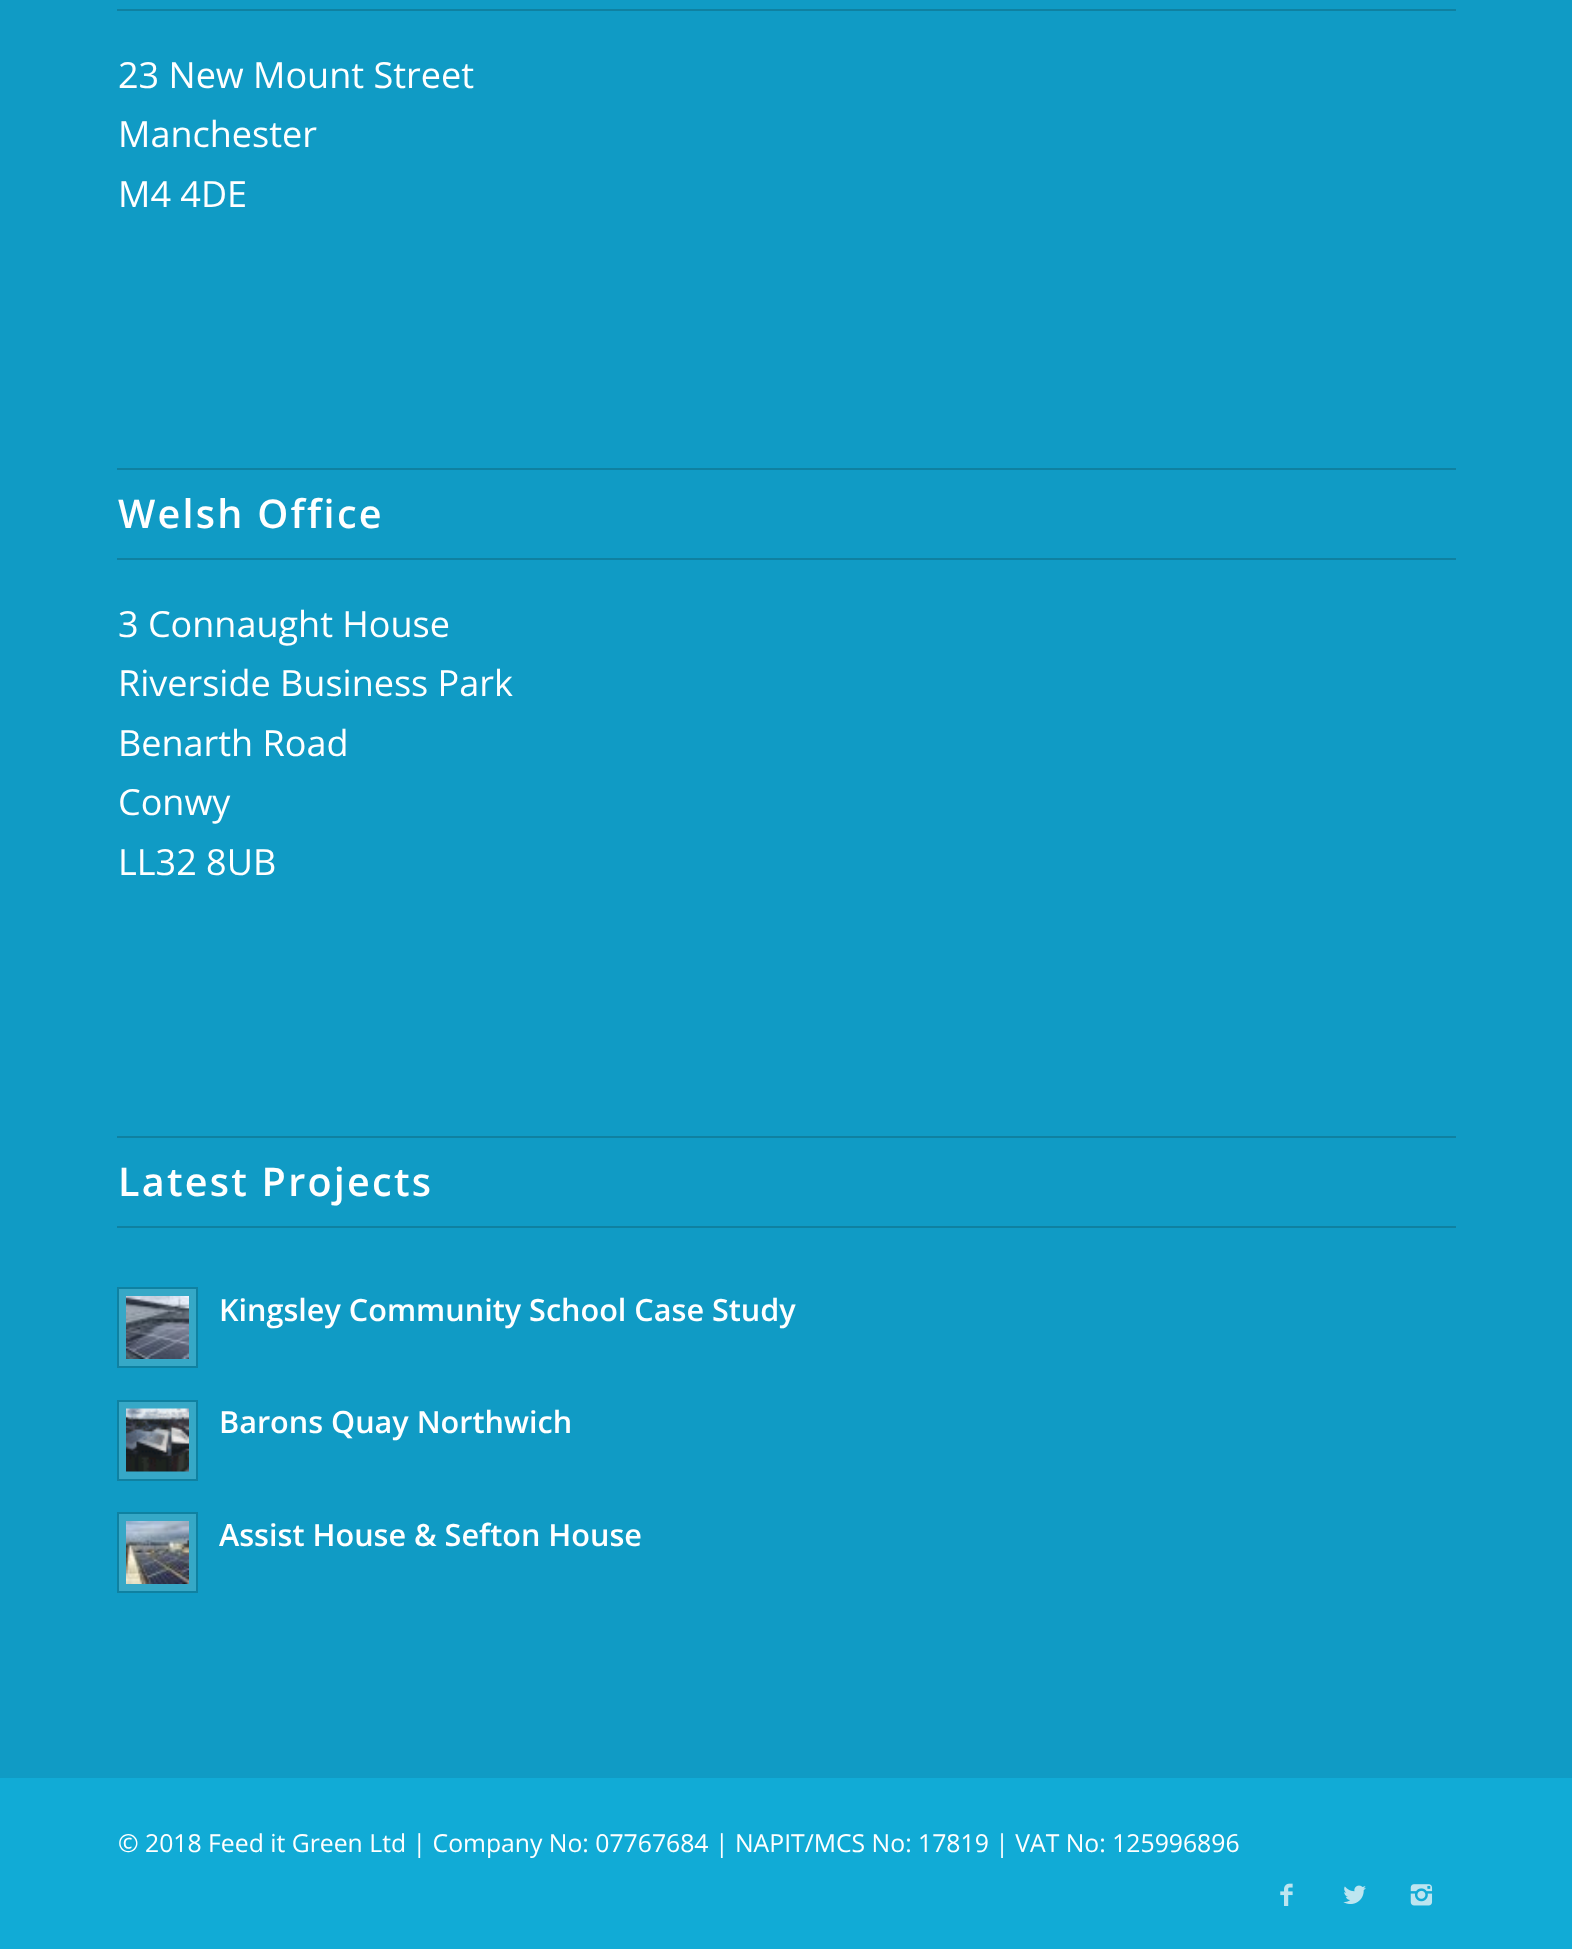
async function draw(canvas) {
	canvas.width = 1572;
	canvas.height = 1949;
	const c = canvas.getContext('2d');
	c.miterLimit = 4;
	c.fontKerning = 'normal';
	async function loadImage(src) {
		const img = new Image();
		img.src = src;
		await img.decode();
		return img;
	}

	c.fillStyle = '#109bc5';
	c.fillRect(0, 0, 1572, 1949);
	c.fillStyle = '#0f81a1';
	c.fillRect(117, 9, 1339, 2);
	c.font = '36px Open Sans';
	c.fillStyle = '#fff';
	for (const [text, x, y] of [
		['23 New Mount Street', 118, 88],
		['Manchester', 118, 147],
		['M4 4DE', 118, 207],
	]) {
		c.fillText(text, x, y);
	}
	c.fillStyle = '#0f81a1';
	c.fillRect(117, 468, 1339, 2);
	c.fillRect(117, 558, 1339, 2);
	c.letterSpacing = '2.25px';
	c.font = '600 39.5px Open Sans';
	c.fillStyle = '#fff';
	c.fillText('Welsh Office', 118, 528);
	c.letterSpacing = '0px';
	c.font = '36px Open Sans';
	for (const [text, x, y] of [
		['3 Connaught House', 118, 637],
		['Riverside Business Park', 118, 696],
		['Benarth Road', 118, 756],
		['Conwy', 118, 815],
		['LL32 8UB', 118, 875],
	]) {
		c.fillText(text, x, y);
	}
	c.fillStyle = '#0f81a1';
	c.fillRect(117, 1136, 1339, 2);
	c.fillRect(117, 1226, 1339, 2);
	c.letterSpacing = '2.25px';
	c.font = '600 39.5px Open Sans';
	c.fillStyle = '#fff';
	c.fillText('Latest Projects', 118, 1196);
	c.fillStyle = '#36a8c7';
	c.beginPath();
	c.rect(118, 1288, 79, 79);
	c.fill();
	c.strokeStyle = '#0f81a1';
	c.lineWidth = 2;
	c.stroke();
	c.drawImage(await loadImage('img1.png'), 126, 1296, 63, 63);
	c.letterSpacing = '0px';
	c.font = '600 30.6px Open Sans';
	c.fillStyle = '#fff';
	c.fillText('Kingsley Community School Case Study', 219, 1321);
	c.fillStyle = '#36a8c7';
	c.beginPath();
	c.rect(118, 1401, 79, 79);
	c.fill();
	c.stroke();
	c.drawImage(await loadImage('img2.png'), 126, 1408, 63, 64);
	c.fillStyle = '#fff';
	c.fillText('Barons Quay Northwich', 219, 1433);
	c.fillStyle = '#36a8c7';
	c.beginPath();
	c.rect(118, 1513, 79, 79);
	c.fill();
	c.stroke();
	c.drawImage(await loadImage('img3.png'), 126, 1521, 63, 63);
	c.fillStyle = '#fff';
	c.fillText('Assist House & Sefton House', 219, 1546);
	c.fillStyle = '#11abd6';
	c.fillRect(0, 1778, 1572, 171);
	c.font = '24.75px Open Sans';
	c.fillStyle = '#fff';
	c.fillText('© 2018 Feed it Green Ltd | Company No: 07767684 | NAPIT/MCS No: 17819 | VAT No: 125996896', 118, 1852);
	c.drawImage(await loadImage('img4.png'), 1280, 1883, 13, 23);
	c.drawImage(await loadImage('img5.png'), 1343, 1885, 23, 19);
	c.drawImage(await loadImage('img6.png'), 1410, 1884, 23, 22);
}

draw(document.querySelector('canvas'));
